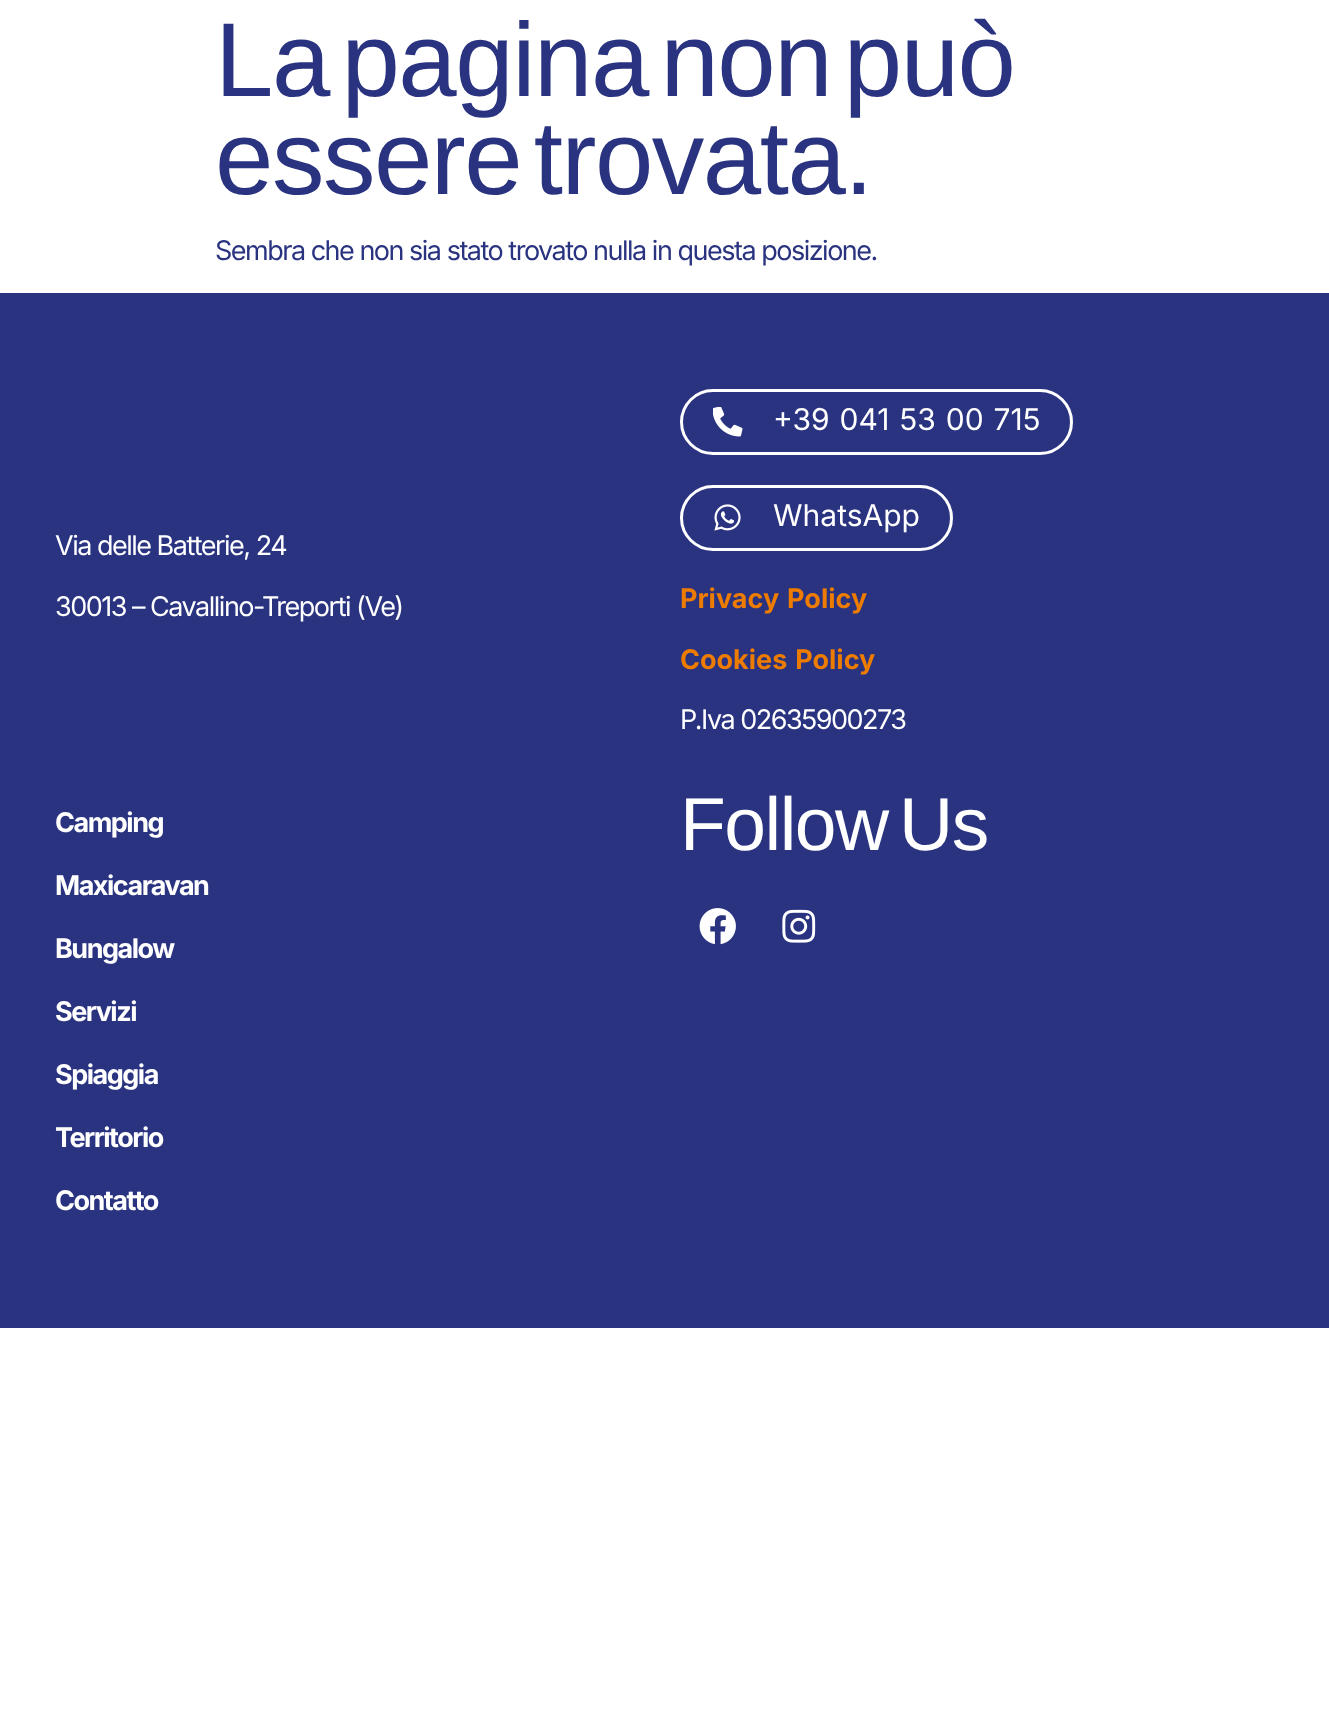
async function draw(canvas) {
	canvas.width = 1329;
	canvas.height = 1733;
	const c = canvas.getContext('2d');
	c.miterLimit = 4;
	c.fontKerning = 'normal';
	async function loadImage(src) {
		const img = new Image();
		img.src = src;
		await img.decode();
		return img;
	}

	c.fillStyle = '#fff';
	c.fillRect(0, 0, 1329, 1733);
	c.letterSpacing = '-1.5px';
	c.wordSpacing = '-15px';
	c.font = '105px Liberation Sans';
	c.fillStyle = '#293380';
	c.fillText('La pagina non può', 215, 96);
	c.fillText('essere trovata.', 215, 194);
	c.wordSpacing = '0px';
	c.font = '27px Inter';
	c.fillText('Sembra che non sia stato trovato nulla in questa posizione.', 215, 260);
	c.fillRect(0, 293, 1329, 1035);
	c.fillStyle = '#fff';
	c.fillText('Via delle Batterie, 24', 55, 555);
	c.fillText('30013 – Cavallino-Treporti (Ve)', 55, 616);
	c.beginPath();
	c.roundRect(681.5, 390.5, 390, 63, 31.5);
	c.strokeStyle = '#fff';
	c.lineWidth = 3;
	c.stroke();
	c.drawImage(await loadImage('img1.png'), 713, 407, 30, 30);
	c.letterSpacing = '0px';
	c.wordSpacing = '1.5px';
	c.font = '30px Inter';
	c.fillText('+39 041 53 00 715', 773, 430);
	c.beginPath();
	c.roundRect(681.5, 486.5, 270, 63, 31.5);
	c.stroke();
	c.drawImage(await loadImage('img2.png'), 714, 504, 27, 27);
	c.wordSpacing = '0px';
	c.fillText('WhatsApp', 773, 526);
	c.wordSpacing = '1.5px';
	c.font = 'bold 27px Inter';
	c.fillStyle = '#ee7c00';
	c.fillText('Privacy Policy', 680, 608);
	c.fillText('Cookies Policy', 680, 669);
	c.letterSpacing = '-1.5px';
	c.wordSpacing = '0px';
	c.font = '27px Inter';
	c.fillStyle = '#fff';
	c.fillText('P.Iva 02635900273', 680, 729);
	c.font = 'bold 27px Inter';
	for (const [text, x, y] of [
		['Camping', 55, 832],
		['Maxicaravan', 55, 895],
		['Bungalow', 55, 958],
		['Servizi', 55, 1021],
		['Spiaggia', 55, 1084],
		['Territorio', 55, 1147],
		['Contatto', 55, 1210],
	]) {
		c.fillText(text, x, y);
	}
	c.wordSpacing = '-8px';
	c.font = '75px Liberation Sans';
	c.fillText('Follow Us', 680, 850);
	c.drawImage(await loadImage('img3.png'), 699, 908, 37, 37);
	c.drawImage(await loadImage('img4.png'), 782, 909, 34, 34);
}

draw(document.querySelector('canvas'));
